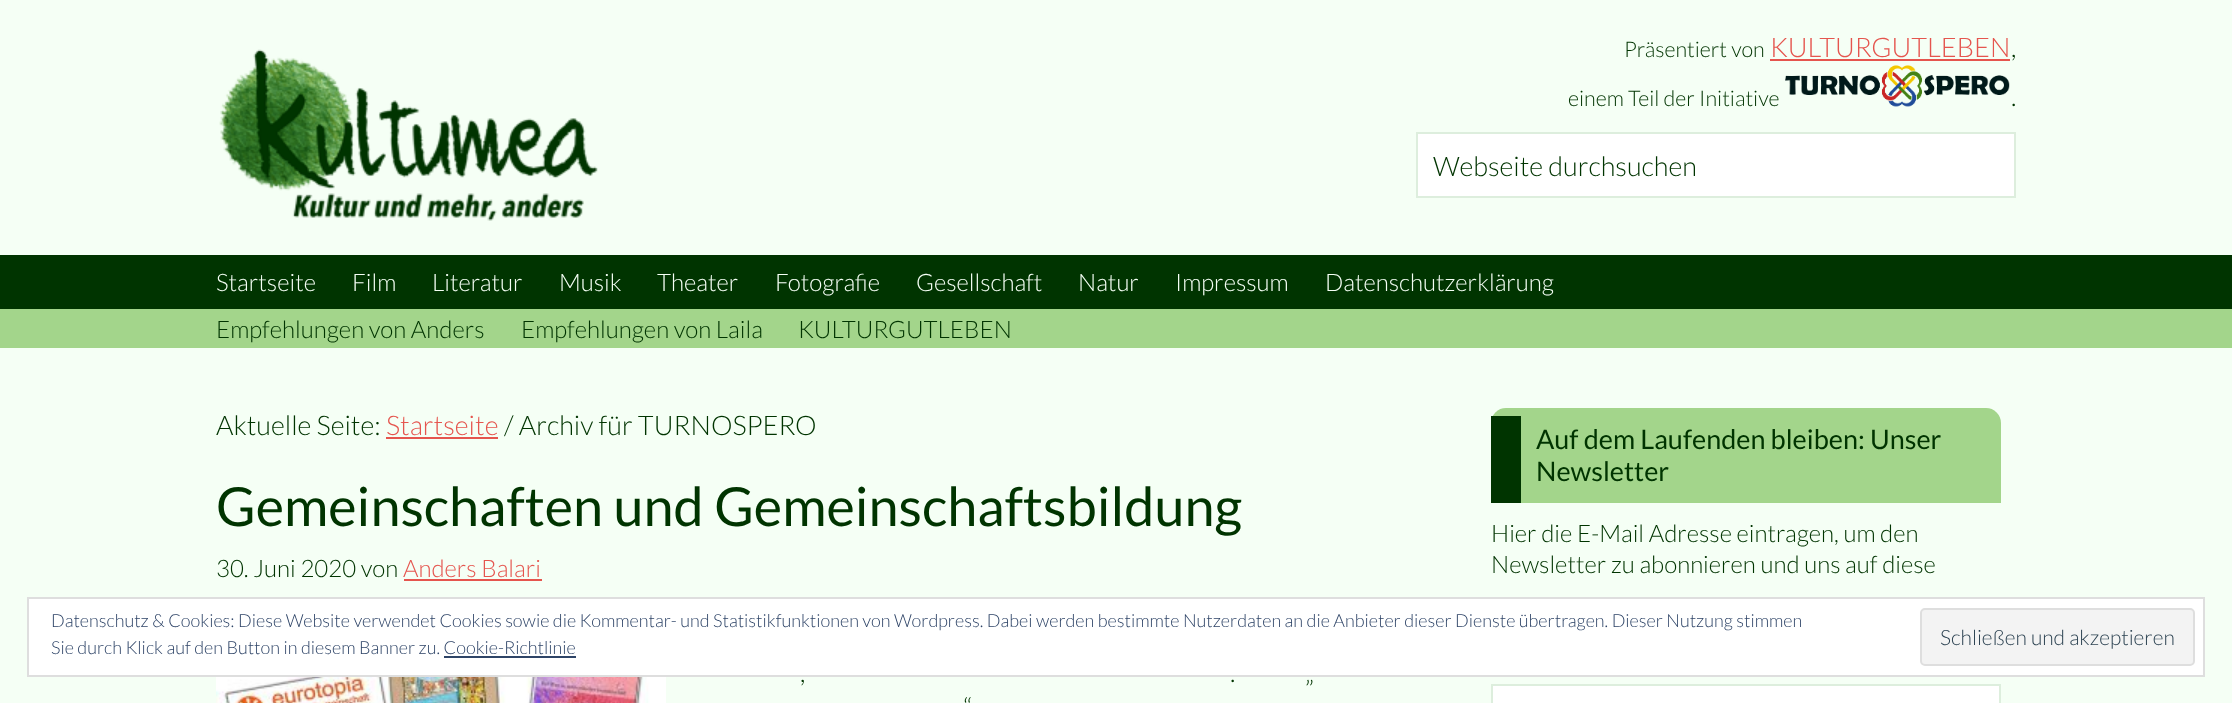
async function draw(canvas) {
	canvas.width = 2232;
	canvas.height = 703;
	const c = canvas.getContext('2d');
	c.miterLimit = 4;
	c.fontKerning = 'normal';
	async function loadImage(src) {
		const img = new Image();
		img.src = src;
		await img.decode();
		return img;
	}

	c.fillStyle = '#f5fff5';
	c.fillRect(0, 0, 2232, 703);
	c.drawImage(await loadImage('img1.png'), 219, 49, 379, 172);
	c.font = '300 21.5px Lato';
	c.fillStyle = '#003400';
	c.fillText('Präsentiert von', 1624, 57);
	c.font = '300 27px Lato';
	c.fillStyle = '#e5554e';
	c.fillText('KULTURGUTLEBEN', 1770, 57);
	c.fillRect(1770, 59, 240, 2);
	c.fillStyle = '#003400';
	c.fillText(',', 2011, 57);
	c.font = '300 21.5px Lato';
	c.fillText('einem Teil der Initiative', 1568, 106);
	c.drawImage(await loadImage('img2.png'), 1785, 65, 225, 42);
	c.font = '300 27px Lato';
	c.fillText('.', 2011, 106);
	c.fillStyle = '#fff';
	c.beginPath();
	c.rect(1417, 133, 598, 64);
	c.fill();
	c.strokeStyle = '#ded';
	c.lineWidth = 2;
	c.stroke();
	c.fillStyle = '#003400';
	c.fillText('Webseite durchsuchen', 1433, 176);
	c.fillRect(0, 255, 2232, 54);
	c.font = '300 24px Lato';
	c.fillStyle = '#f5fff5';
	for (const [text, x, y] of [
		['Startseite', 216, 291],
		['Film', 352, 291],
		['Literatur', 432, 291],
		['Musik', 559, 291],
		['Theater', 657, 291],
		['Fotografie', 775, 291],
		['Gesellschaft', 916, 291],
		['Natur', 1078, 291],
		['Impressum', 1175, 291],
		['Datenschutzerklärung', 1325, 291],
	]) {
		c.fillText(text, x, y);
	}
	c.fillStyle = '#a3d58b';
	c.fillRect(0, 309, 2232, 39);
	c.fillStyle = '#003400';
	for (const [text, x, y] of [
		['Empfehlungen von Anders', 216, 338],
		['Empfehlungen von Laila', 521, 338],
		['KULTURGUTLEBEN', 798, 338],
	]) {
		c.fillText(text, x, y);
	}
	c.font = '300 27px Lato';
	c.fillText('Aktuelle Seite:', 216, 435);
	c.fillStyle = '#e5554e';
	c.fillText('Startseite', 386, 435);
	c.fillRect(386, 437, 112, 2);
	c.fillStyle = '#003400';
	c.fillText('/ Archiv für TURNOSPERO', 504, 435);
	c.font = '54px Lato';
	c.fillText('Gemeinschaften und Gemeinschaftsbildung', 216, 526);
	c.font = '300 24px Lato';
	c.fillText('30. Juni 2020 von', 216, 577);
	c.fillStyle = '#e5554e';
	c.fillText('Anders Balari', 403, 577);
	c.fillRect(404, 579, 138, 2);
	c.drawImage(await loadImage('img3.png'), 216, 677, 450, 26);
	c.font = '300 27px Lato';
	c.fillStyle = '#003400';
	for (const [text, x, y] of [
		[',', 800, 682],
		['.', 1230, 682],
		['„', 1305, 682],
		['“', 963, 717],
	]) {
		c.fillText(text, x, y);
	}
	c.fillStyle = '#a3d58b';
	c.beginPath();
	c.roundRect(1491, 408, 510, 95, [15, 15, 0, 0]);
	c.fill();
	c.fillStyle = '#003400';
	c.fillRect(1491, 416, 30, 87);
	c.font = '27px Lato';
	c.fillText('Auf dem Laufenden bleiben: Unser', 1536, 449);
	c.fillText('Newsletter', 1536, 481);
	c.font = '300 24px Lato';
	c.fillText('Hier die E-Mail Adresse eintragen, um den', 1491, 542);
	c.fillText('Newsletter zu abonnieren und uns auf diese', 1491, 573);
	c.fillStyle = '#fff';
	c.beginPath();
	c.rect(1492, 685, 508, 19);
	c.fill();
	c.stroke();
	c.beginPath();
	c.rect(28, 598, 2176, 78);
	c.fill();
	c.strokeStyle = '#dedede';
	c.stroke();
	c.font = '300 18px Lato';
	c.fillStyle = '#2e4467';
	c.fillText('Datenschutz & Cookies: Diese Website verwendet Cookies sowie die Kommentar- und Statistikfunktionen von Wordpress. Dabei werden bestimmte Nutzerdaten an die Anbieter dieser Dienste übertragen. Dieser Nutzung stimmen', 51, 627);
	c.fillText('Sie durch Klick auf den Button in diesem Banner zu. Cookie-Richtlinie', 51, 654);
	c.fillStyle = '#f3f3f3';
	c.beginPath();
	c.roundRect(1921, 609, 273, 56, 4);
	c.fill();
	c.stroke();
	c.font = '300 21px Lato';
	c.fillStyle = '#2e4453';
	c.fillText('Schließen und akzeptieren', 1940, 645);
	c.fillStyle = '#2e4467';
	c.fillRect(444, 656, 132, 2);
}

draw(document.querySelector('canvas'));
